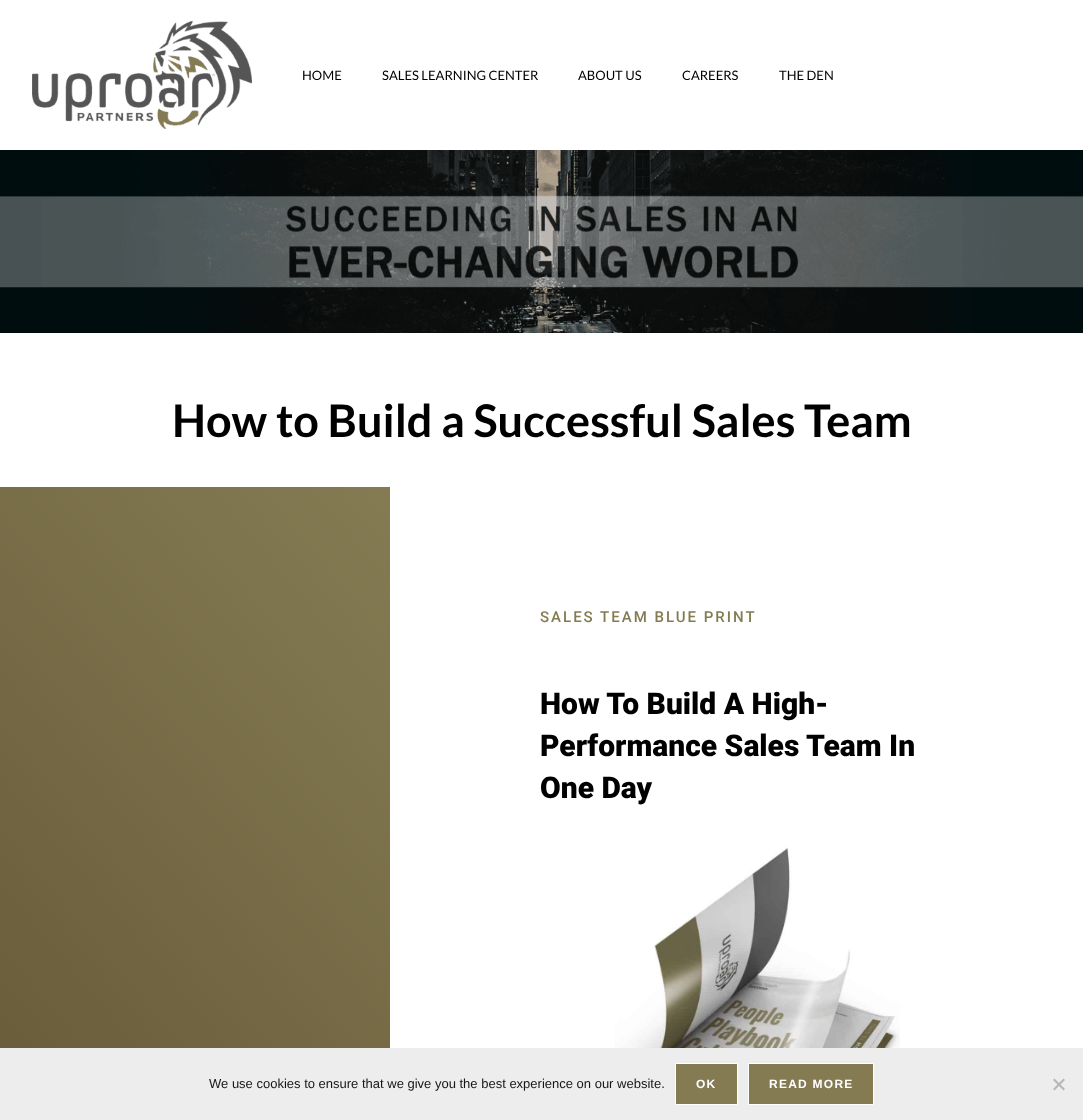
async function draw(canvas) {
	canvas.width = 1083;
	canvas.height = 1120;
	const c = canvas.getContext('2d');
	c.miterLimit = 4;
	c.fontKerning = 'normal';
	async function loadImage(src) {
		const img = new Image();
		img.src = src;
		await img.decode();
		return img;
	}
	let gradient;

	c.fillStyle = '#fff';
	c.fillRect(0, 0, 1083, 1120);
	c.drawImage(await loadImage('img1.png'), 32, 21, 220, 108);
	c.font = '13px Lato';
	c.fillStyle = '#000';
	for (const [text, x, y] of [
		['HOME', 302, 80],
		['SALES LEARNING CENTER', 382, 80],
		['ABOUT US', 578, 80],
		['CAREERS', 682, 80],
		['THE DEN', 779, 80],
	]) {
		c.fillText(text, x, y);
	}
	c.drawImage(await loadImage('img2.png'), 0, 150, 1083, 183);
	c.font = 'bold 45px Lato';
	c.fillText('How to Build a Successful Sales Team', 172, 437);
	gradient = c.createLinearGradient(715, 875, -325, 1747);
	gradient.addColorStop(0, '#847b53');
	gradient.addColorStop(1, '#4f3f21');
	c.fillStyle = gradient;
	c.fillRect(0, 487, 390, 561);
	c.letterSpacing = '2px';
	c.font = '500 15px Roboto';
	c.fillStyle = '#847b53';
	c.fillText('SALES TEAM BLUE PRINT', 540, 622);
	c.letterSpacing = '0px';
	c.font = '900 30px Roboto';
	c.fillStyle = '#000';
	for (const [text, x, y] of [
		['How To Build A High-', 540, 714],
		['Performance Sales Team In', 540, 756],
		['One Day', 540, 798],
	]) {
		c.fillText(text, x, y);
	}
	c.drawImage(await loadImage('img3.png'), 614, 847, 286, 201);
	c.fillStyle = '#ededed';
	c.fillRect(0, 1048, 1083, 72);
	c.font = '13px Liberation Sans';
	c.fillStyle = '#161616';
	c.fillText('We use cookies to ensure that we give you the best experience on our website.', 209, 1088);
	c.fillStyle = '#847b53';
	c.beginPath();
	c.rect(675.5, 1063.5, 62, 41);
	c.fill();
	c.strokeStyle = '#fff';
	c.stroke();
	c.letterSpacing = '1.25px';
	c.font = 'bold 12px Liberation Sans';
	c.fillStyle = '#fff';
	c.fillText('OK', 696, 1088);
	c.fillStyle = '#847b53';
	c.beginPath();
	c.rect(748.5, 1063.5, 125, 41);
	c.fill();
	c.stroke();
	c.fillStyle = '#fff';
	c.fillText('READ MORE', 769, 1088);
	c.fillStyle = '#b7b7b7';
	c.beginPath();
	c.moveTo(1063.5, 1078.5);
	c.lineTo(1065, 1080);
	c.lineTo(1054.5, 1090.5);
	c.lineTo(1053, 1089);
	c.closePath();
	c.fill();
	c.beginPath();
	c.moveTo(1053, 1080);
	c.lineTo(1054.5, 1078.5);
	c.lineTo(1065, 1089);
	c.lineTo(1063.5, 1090.5);
	c.closePath();
	c.fill();
}

draw(document.querySelector('canvas'));
